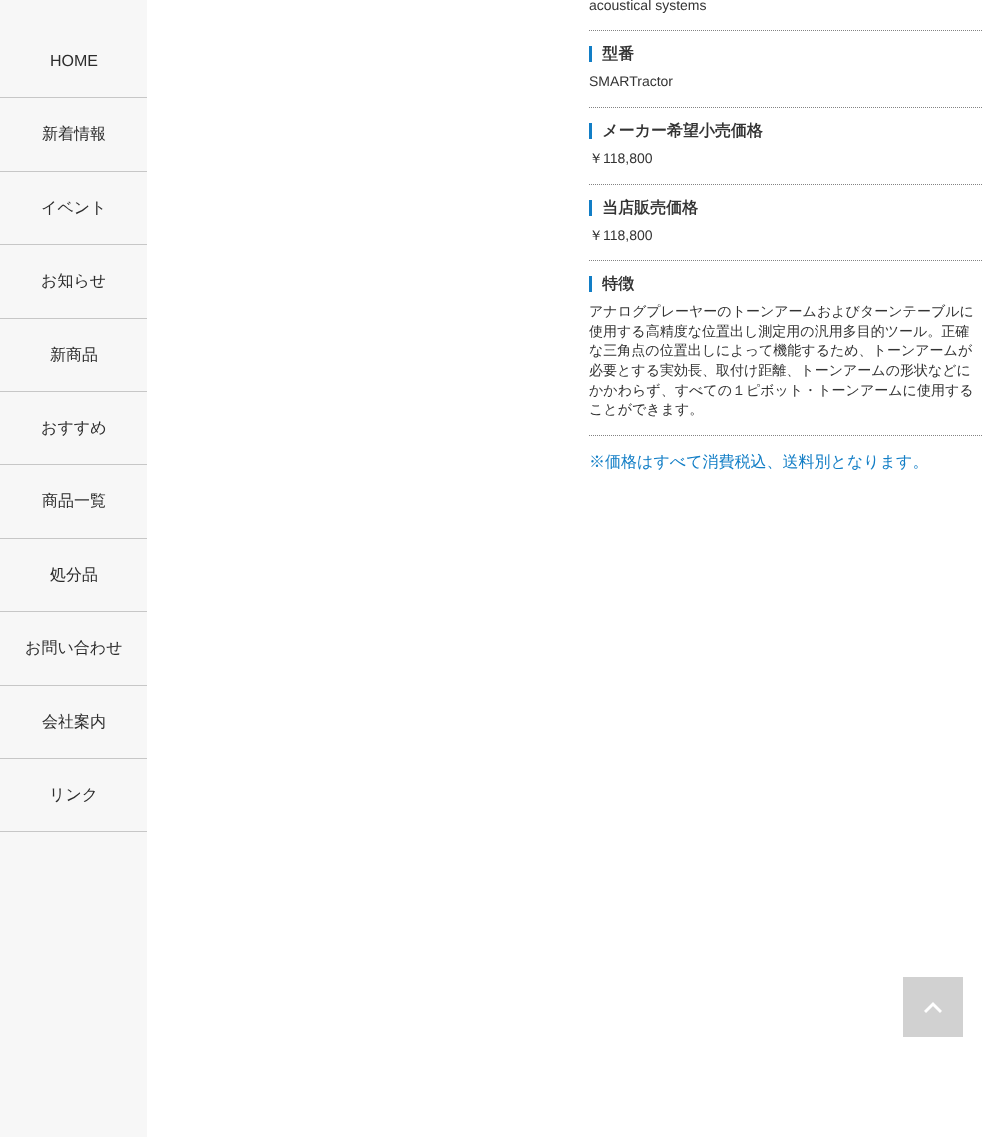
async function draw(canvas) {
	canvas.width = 983;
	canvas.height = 1137;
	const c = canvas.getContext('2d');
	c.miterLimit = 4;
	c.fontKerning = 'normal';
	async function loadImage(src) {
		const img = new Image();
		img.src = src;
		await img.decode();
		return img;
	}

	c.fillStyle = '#fff';
	c.fillRect(0, 0, 983, 1137);
	c.fillStyle = '#f7f7f7';
	c.fillRect(0, 0, 147, 1137);
	c.fillStyle = '#c7c7c7';
	c.fillRect(0, 97, 147, 1);
	c.font = '16px Liberation Sans';
	c.fillStyle = '#2c2c2c';
	c.fillText('HOME', 50, 66);
	c.fillStyle = '#c7c7c7';
	c.fillRect(0, 171, 147, 1);
	c.font = '500 16px WenQuanYi Zen Hei';
	c.fillStyle = '#2c2c2c';
	c.fillText('新着情報', 42, 139);
	c.fillStyle = '#c7c7c7';
	c.fillRect(0, 244, 147, 1);
	c.fillStyle = '#2c2c2c';
	c.fillText('イベント', 41, 213);
	c.fillStyle = '#c7c7c7';
	c.fillRect(0, 318, 147, 1);
	c.fillStyle = '#2c2c2c';
	c.fillText('お知らせ', 41, 286);
	c.fillStyle = '#c7c7c7';
	c.fillRect(0, 391, 147, 1);
	c.fillStyle = '#2c2c2c';
	c.fillText('新商品', 50, 360);
	c.fillStyle = '#c7c7c7';
	c.fillRect(0, 464, 147, 1);
	c.fillStyle = '#2c2c2c';
	c.fillText('おすすめ', 41, 433);
	c.fillStyle = '#c7c7c7';
	c.fillRect(0, 538, 147, 1);
	c.fillStyle = '#2c2c2c';
	c.fillText('商品一覧', 42, 506);
	c.fillStyle = '#c7c7c7';
	c.fillRect(0, 611, 147, 1);
	c.fillStyle = '#2c2c2c';
	c.fillText('処分品', 50, 580);
	c.fillStyle = '#c7c7c7';
	c.fillRect(0, 685, 147, 1);
	c.fillStyle = '#2c2c2c';
	c.fillText('お問い合わせ', 25, 653);
	c.fillStyle = '#c7c7c7';
	c.fillRect(0, 758, 147, 1);
	c.fillStyle = '#2c2c2c';
	c.fillText('会社案内', 42, 727);
	c.fillStyle = '#c7c7c7';
	c.fillRect(0, 831, 147, 1);
	c.fillStyle = '#2c2c2c';
	c.fillText('リンク', 49, 800);
	c.beginPath();
	c.moveTo(589, 30.5);
	c.lineTo(983, 30.5);
	c.strokeStyle = '#838383';
	c.setLineDash([1, 1]);
	c.stroke();
	c.font = '14px Liberation Sans';
	c.fillStyle = '#333';
	c.fillText('acoustical systems', 589, 10);
	c.beginPath();
	c.moveTo(589, 107.5);
	c.lineTo(983, 107.5);
	c.stroke();
	c.fillStyle = '#127ec6';
	c.fillRect(589, 46, 3, 16);
	c.font = 'bold 16px WenQuanYi Zen Hei';
	c.fillStyle = '#333';
	c.fillText('型番', 602, 59);
	c.font = '14px Liberation Sans';
	c.fillText('SMARTractor', 589, 86);
	c.beginPath();
	c.moveTo(589, 184.5);
	c.lineTo(983, 184.5);
	c.stroke();
	c.fillStyle = '#127ec6';
	c.fillRect(589, 123, 3, 16);
	c.font = 'bold 16px WenQuanYi Zen Hei';
	c.fillStyle = '#333';
	c.fillText('メーカー希望小売価格', 602, 136);
	c.font = '500 14px WenQuanYi Zen Hei';
	c.fillText('￥', 589, 163);
	c.font = '14px Liberation Sans';
	c.fillText('118,800', 603, 163);
	c.beginPath();
	c.moveTo(589, 260.5);
	c.lineTo(983, 260.5);
	c.stroke();
	c.fillStyle = '#127ec6';
	c.fillRect(589, 200, 3, 16);
	c.font = 'bold 16px WenQuanYi Zen Hei';
	c.fillStyle = '#333';
	c.fillText('当店販売価格', 602, 213);
	c.font = '500 14px WenQuanYi Zen Hei';
	c.fillText('￥', 589, 240);
	c.font = '14px Liberation Sans';
	c.fillText('118,800', 603, 240);
	c.beginPath();
	c.moveTo(589, 435.5);
	c.lineTo(983, 435.5);
	c.stroke();
	c.fillStyle = '#127ec6';
	c.fillRect(589, 276, 3, 16);
	c.font = 'bold 16px WenQuanYi Zen Hei';
	c.fillStyle = '#333';
	c.fillText('特徴', 602, 289);
	c.font = '500 14px WenQuanYi Zen Hei';
	for (const [text, x, y] of [
		['アナログプレーヤーのトーンアームおよびターンテーブルに', 589, 316],
		['使用する高精度な位置出し測定用の汎用多目的ツール。正確', 589, 336],
		['な三角点の位置出しによって機能するため、トーンアームが', 589, 355],
		['必要とする実効長、取付け距離、トーンアームの形状などに', 589, 375],
		['かかわらず、すべての１ピボット・トーンアームに使用する', 589, 395],
		['ことができます。', 589, 414],
	]) {
		c.fillText(text, x, y);
	}
	c.font = '500 16px WenQuanYi Zen Hei';
	c.fillStyle = '#127ec6';
	c.fillText('※価格はすべて消費税込、送料別となります。', 589, 467);
	c.drawImage(await loadImage('img1.png'), 903, 977, 60, 60);
}

draw(document.querySelector('canvas'));
